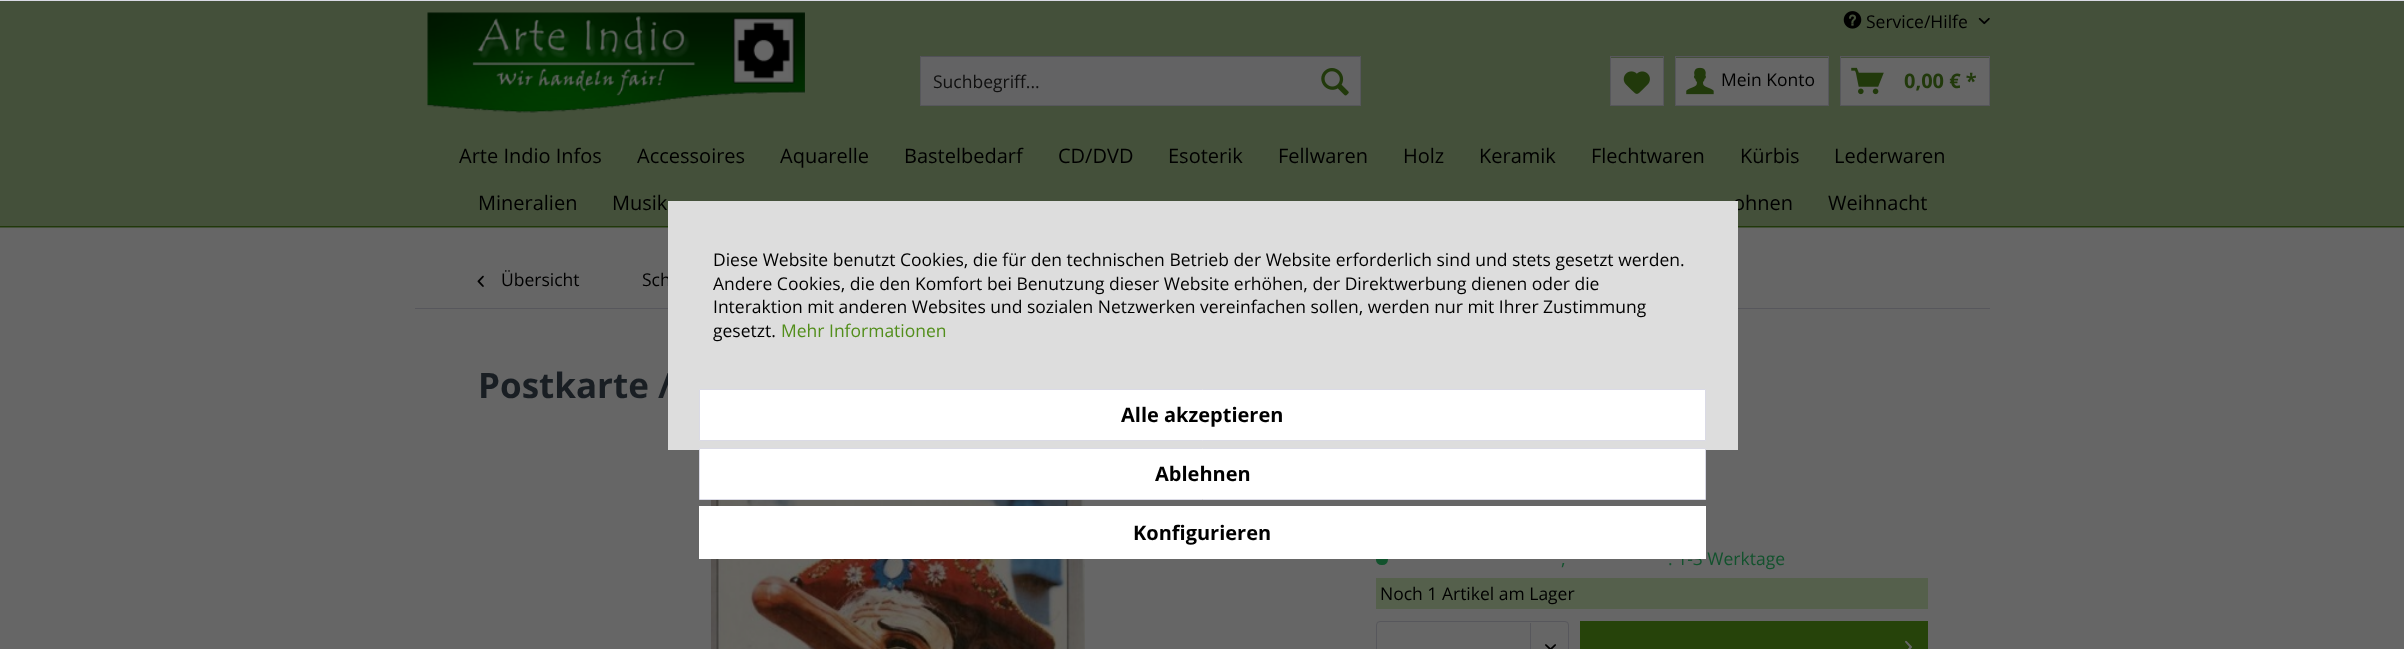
async function draw(canvas) {
	canvas.width = 2404;
	canvas.height = 649;
	const c = canvas.getContext('2d');
	c.miterLimit = 4;
	c.fontKerning = 'normal';
	async function loadImage(src) {
		const img = new Image();
		img.src = src;
		await img.decode();
		return img;
	}

	c.fillStyle = '#666';
	c.fillRect(0, 0, 2404, 649);
	c.fillStyle = '#44503a';
	c.fillRect(0, 1, 2404, 227);
	c.drawImage(await loadImage('img1.png'), 1843, 11, 19, 18);
	c.font = '17.5px Open Sans';
	c.fillStyle = '#000';
	c.fillText('Service/Hilfe', 1866, 28);
	c.drawImage(await loadImage('img2.png'), 1978, 17, 12, 8);
	c.drawImage(await loadImage('img3.png'), 427, 12, 378, 101);
	for (const [x, y, w, h, color] of [
		[921, 57, 439, 48, '#636364'],
		[920, 56, 441, 1, '#515158'],
		[1360, 56, 1, 50, '#57575c'],
		[920, 105, 441, 1, '#57575c'],
		[920, 56, 1, 50, '#57575c'],
	]) {
		c.fillStyle = color;
		c.fillRect(x, y, w, h);
	}
	c.fillStyle = '#0f0f0f';
	c.fillText('Suchbegriff...', 933, 88);
	c.drawImage(await loadImage('img4.png'), 1321, 68, 28, 28);
	c.fillStyle = '#666';
	c.fillRect(1611, 58, 52, 47);
	c.strokeStyle = '#57575c';
	c.strokeRect(1610.5, 56.5, 53, 49);
	c.drawImage(await loadImage('img5.png'), 1623, 71, 27, 23);
	c.fillRect(1676, 58, 152, 47);
	c.strokeRect(1675.5, 56.5, 153, 49);
	c.drawImage(await loadImage('img6.png'), 1686, 67, 28, 28);
	c.fillStyle = '#000';
	c.fillText('Mein Konto', 1721, 86);
	c.fillStyle = '#666';
	c.fillRect(1841, 58, 148, 47);
	c.strokeRect(1840.5, 56.5, 149, 49);
	c.drawImage(await loadImage('img7.png'), 1851, 67, 33, 28);
	c.font = 'bold 20px Open Sans';
	c.fillStyle = '#21390b';
	c.fillText('0,00 € *', 1904, 88);
	c.fillRect(0, 226, 2404, 1);
	c.font = '20px Open Sans';
	c.fillStyle = '#000';
	for (const [text, x, y] of [
		['Arte Indio Infos', 459, 163],
		['Accessoires', 637, 163],
		['Aquarelle', 780, 163],
		['Bastelbedarf', 904, 163],
		['CD/DVD', 1058, 163],
		['Esoterik', 1168, 163],
		['Fellwaren', 1278, 163],
		['Holz', 1403, 163],
		['Keramik', 1479, 163],
		['Flechtwaren', 1591, 163],
		['Kürbis', 1740, 163],
		['Lederwaren', 1834, 163],
		['Mineralien', 478, 210],
		['Musik', 612, 210],
		['ohnen', 1733, 210],
		['Weihnacht', 1828, 210],
	]) {
		c.fillText(text, x, y);
	}
	c.fillStyle = '#57575c';
	c.fillRect(415, 308, 1575, 1);
	c.drawImage(await loadImage('img8.png'), 477, 275, 7, 12);
	c.font = '17.5px Open Sans';
	c.fillStyle = '#000';
	c.fillText('Übersicht', 501, 286);
	c.fillText('Sch', 642, 286);
	c.font = 'bold 35px Open Sans';
	c.fillStyle = '#191e23';
	c.fillText('Postkarte /', 478, 398);
	c.drawImage(await loadImage('img9.png'), 711, 500, 374, 149);
	c.fillStyle = '#12522d';
	c.beginPath();
	c.roundRect(1376, 554, 12, 11, 5.5);
	c.fill();
	c.font = '17.5px Open Sans';
	c.fillText(',', 1561, 565);
	c.fillText('. 1-3 Werktage', 1668, 565);
	c.fillStyle = '#55604c';
	c.fillRect(1376, 578, 552, 31);
	c.fillStyle = '#000';
	c.fillText('Noch 1 Artikel am Lager', 1380, 600);
	c.beginPath();
	c.roundRect(1376.5, 621.5, 192, 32, 3.5);
	c.stroke();
	c.fillStyle = '#57575c';
	c.fillRect(1530, 623, 1, 26);
	c.drawImage(await loadImage('img10.png'), 1545, 644, 11, 5);
	c.fillStyle = '#26430a';
	c.fillRect(1580, 621, 348, 28);
	c.drawImage(await loadImage('img11.png'), 1905, 640, 7, 9);
	c.fillStyle = '#dadae5';
	c.fillRect(0, 0, 2404, 1);
	c.fillStyle = '#ddd';
	c.fillRect(668, 201, 1070, 249);
	c.fillStyle = '#000';
	for (const [text, x, y] of [
		['Diese Website benutzt Cookies, die für den technischen Betrieb der Website erforderlich sind und stets gesetzt werden.', 713, 266],
		['Andere Cookies, die den Komfort bei Benutzung dieser Website erhöhen, der Direktwerbung dienen oder die', 713, 290],
		['Interaktion mit anderen Websites und sozialen Netzwerken vereinfachen sollen, werden nur mit Ihrer Zustimmung', 713, 313],
		['gesetzt.', 713, 337],
	]) {
		c.fillText(text, x, y);
	}
	c.fillStyle = '#528e1b';
	c.fillText('Mehr Informationen', 781, 337);
	c.fillStyle = '#fff';
	c.beginPath();
	c.rect(699.5, 389.5, 1006, 51);
	c.fill();
	c.strokeStyle = '#dadae5';
	c.stroke();
	c.font = 'bold 20px Open Sans';
	c.fillStyle = '#000';
	c.fillText('Alle akzeptieren', 1121, 422);
	c.fillStyle = '#fff';
	c.beginPath();
	c.rect(699.5, 448.5, 1006, 51);
	c.fill();
	c.stroke();
	c.fillStyle = '#000';
	c.fillText('Ablehnen', 1155, 481);
	c.fillStyle = '#fff';
	c.fillRect(699, 506, 1007, 53);
	c.fillStyle = '#000';
	c.fillText('Konfigurieren', 1133, 540);
}

draw(document.querySelector('canvas'));
